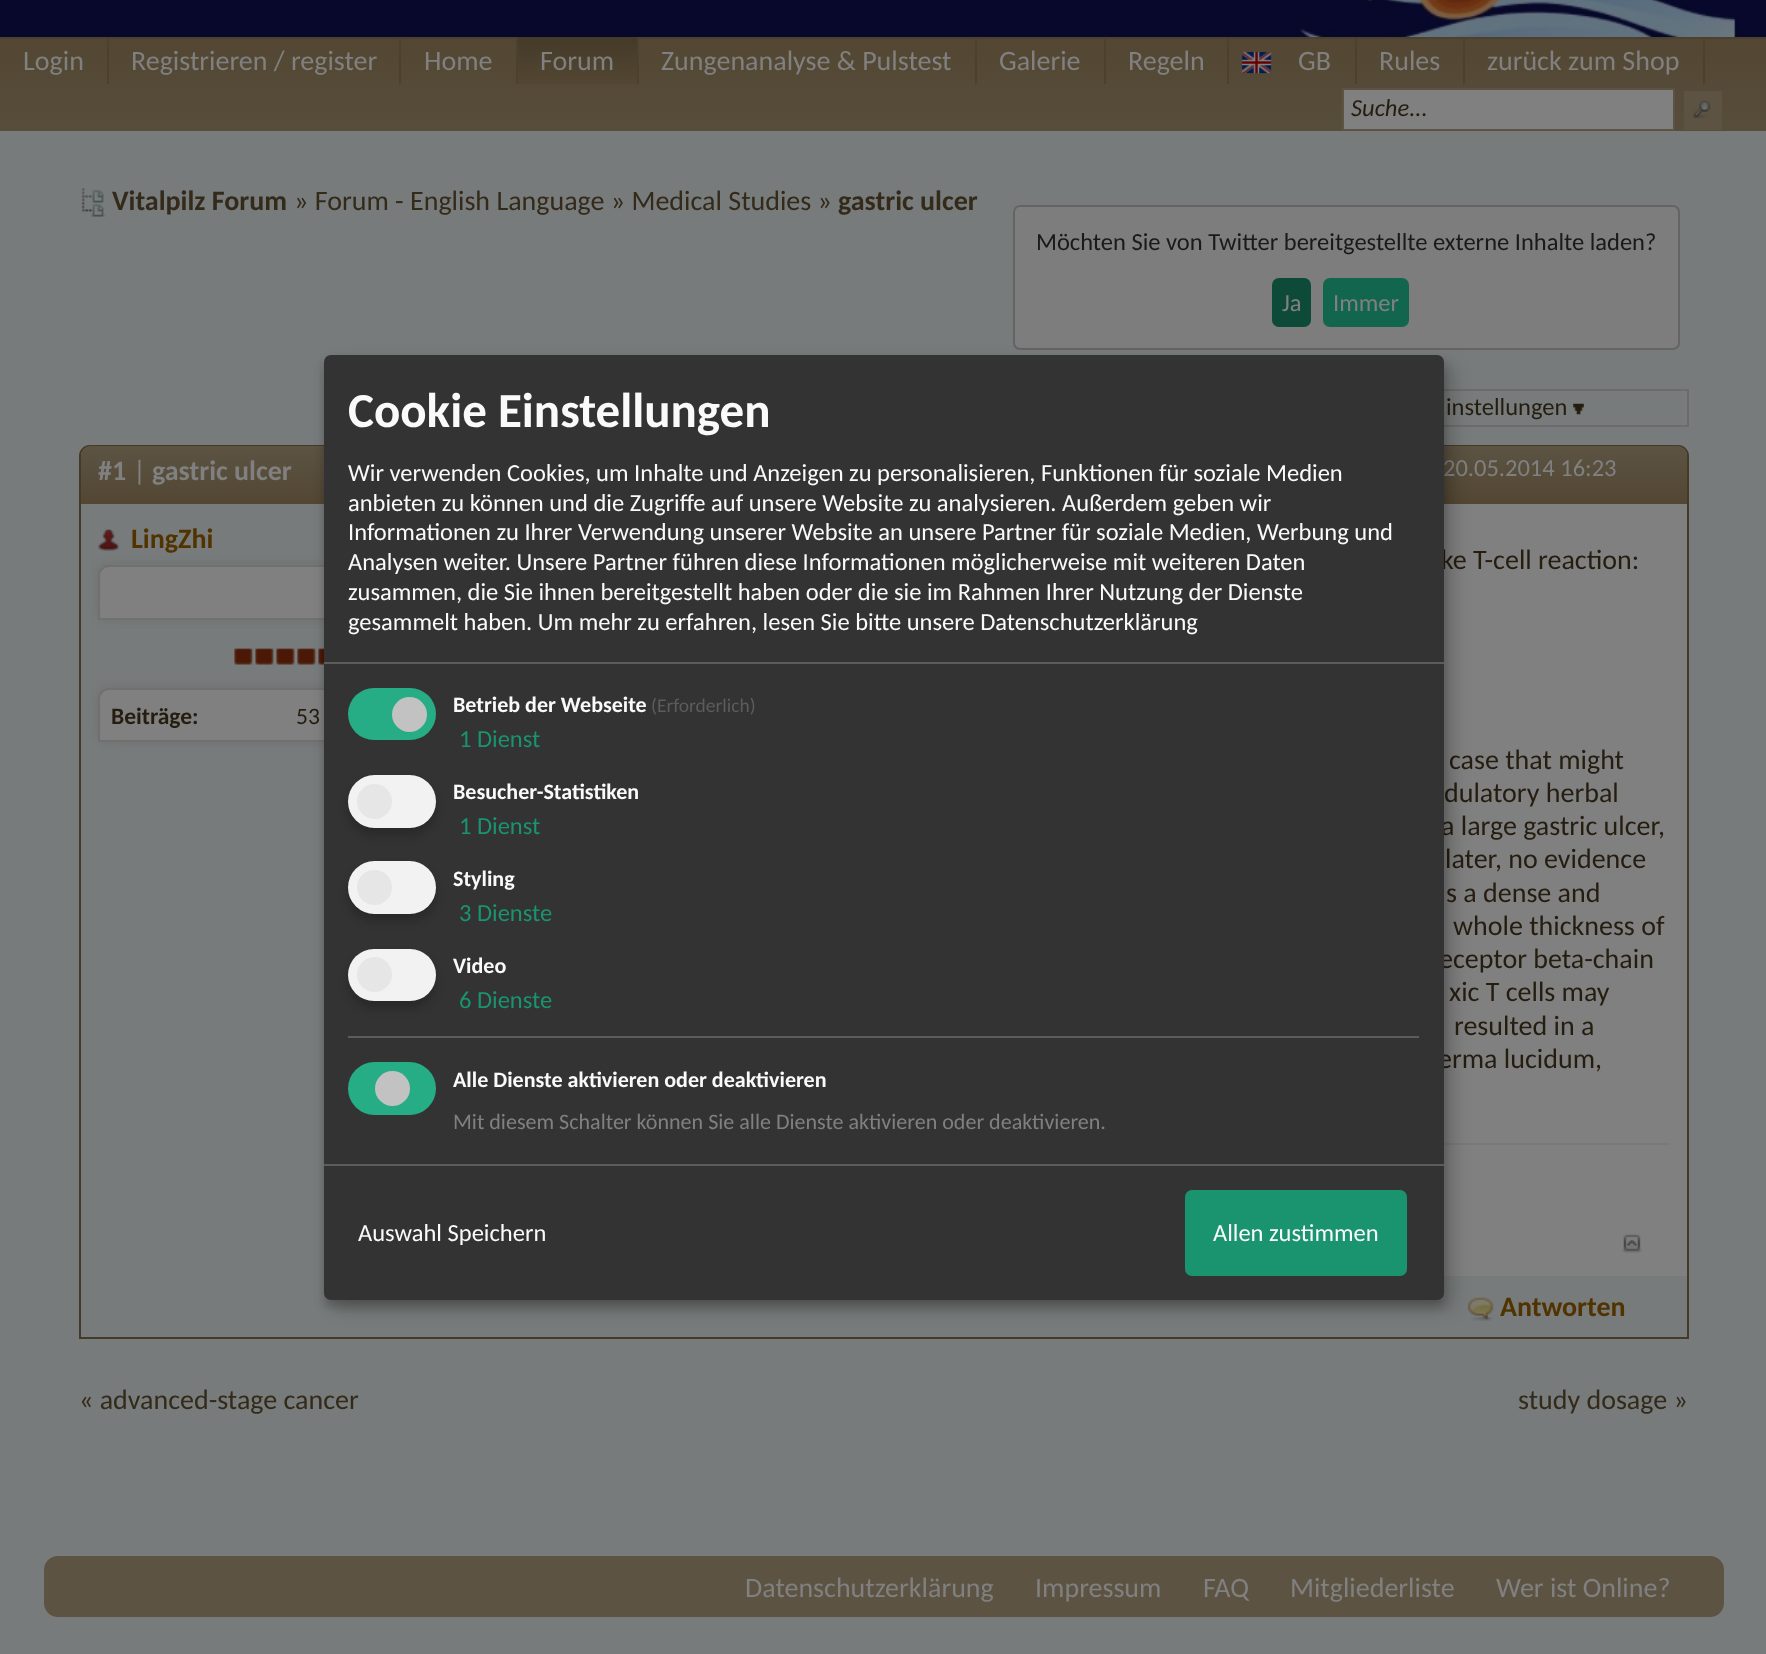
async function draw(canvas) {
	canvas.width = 1766;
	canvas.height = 1654;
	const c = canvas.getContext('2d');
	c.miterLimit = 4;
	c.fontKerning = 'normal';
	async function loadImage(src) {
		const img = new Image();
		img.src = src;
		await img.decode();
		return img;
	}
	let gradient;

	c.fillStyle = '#787b7b';
	c.fillRect(0, 0, 1766, 1654);
	c.drawImage(await loadImage('img1.png'), 0, 0, 1766, 37);
	gradient = c.createLinearGradient(0, 37, 0, 131);
	gradient.addColorStop(0, '#534733');
	gradient.addColorStop(1, '#574d3b');
	c.fillStyle = gradient;
	c.fillRect(0, 39, 1766, 92);
	c.fillStyle = '#4c412d';
	c.fillRect(0, 37, 1766, 2);
	c.font = '28px Carlito';
	c.fillStyle = '#808080';
	c.fillText('Login', 23, 70);
	c.fillStyle = '#4c412d';
	c.fillRect(107, 37, 2, 47);
	c.fillStyle = '#808080';
	c.fillText('Registrieren / register', 131, 70);
	c.fillStyle = '#4c412d';
	c.fillRect(399, 37, 2, 47);
	c.fillStyle = '#808080';
	c.fillText('Home', 424, 70);
	gradient = c.createLinearGradient(518, 37, 518, 84);
	gradient.addColorStop(0, '#443a28');
	gradient.addColorStop(1, '#534733');
	c.fillStyle = gradient;
	c.fillRect(518, 37, 119, 47);
	c.fillStyle = '#4c412d';
	c.fillRect(637, 37, 2, 47);
	c.fillRect(516, 37, 2, 47);
	c.fillStyle = '#808080';
	c.fillText('Forum', 540, 70);
	c.fillText('Zungenanalyse & Pulstest', 661, 70);
	c.fillStyle = '#4c412d';
	c.fillRect(975, 37, 2, 47);
	c.fillStyle = '#808080';
	c.fillText('Galerie', 999, 70);
	c.fillStyle = '#4c412d';
	c.fillRect(1104, 37, 2, 47);
	c.fillStyle = '#808080';
	c.fillText('Regeln', 1128, 70);
	c.fillStyle = '#4c412d';
	c.fillRect(1227, 37, 2, 47);
	c.drawImage(await loadImage('img2.png'), 1241, 51, 31, 23);
	c.fillStyle = '#808080';
	c.fillText('GB', 1298, 70);
	c.fillStyle = '#4c412d';
	c.fillRect(1355, 37, 2, 47);
	c.fillStyle = '#808080';
	c.fillText('Rules', 1379, 70);
	c.fillStyle = '#4c412d';
	c.fillRect(1703, 37, 2, 47);
	c.fillRect(1463, 37, 2, 47);
	c.fillStyle = '#808080';
	c.fillText('zurück zum Shop', 1487, 70);
	c.beginPath();
	c.rect(1343, 89, 331, 41);
	c.fill();
	c.strokeStyle = '#5c5343';
	c.lineWidth = 2;
	c.stroke();
	c.font = 'italic 24.5px Carlito';
	c.fillStyle = '#251d10';
	c.fillText('Suche...', 1351, 116);
	c.fillStyle = '#5c5343';
	c.fillRect(1684, 91, 38, 39);
	c.drawImage(await loadImage('img3.png'), 1692, 100, 19, 19);
	c.drawImage(await loadImage('img4.png'), 81, 188, 25, 29);
	c.font = 'bold 28px Carlito';
	c.fillStyle = '#332a1a';
	c.fillText('Vitalpilz Forum', 112, 210);
	c.font = '28px Carlito';
	c.fillText('» Forum - English Language » Medical Studies »', 294, 210);
	c.font = 'bold 28px Carlito';
	c.fillText('gastric ulcer', 838, 210);
	c.fillStyle = '#7d7d7d';
	c.beginPath();
	c.roundRect(1014, 206, 665, 143, 6);
	c.fill();
	c.strokeStyle = '#646464';
	c.stroke();
	c.font = '24.5px Carlito';
	c.fillStyle = '#1a1a1a';
	c.fillText('Möchten Sie von Twitter bereitgestellte externe Inhalte laden?', 1036, 250);
	c.fillStyle = '#0d4a38';
	c.beginPath();
	c.roundRect(1272, 278, 39, 49, 7);
	c.fill();
	c.fillStyle = '#808080';
	c.fillText('Ja', 1282, 311);
	c.fillStyle = '#12664d';
	c.beginPath();
	c.roundRect(1323, 278, 86, 49, 7);
	c.fill();
	c.fillStyle = '#808080';
	c.fillText('Immer', 1333, 311);
	c.strokeStyle = '#6c6c6c';
	c.strokeRect(985, 390, 703, 36);
	c.fillStyle = '#251d10';
	c.fillText('instellungen', 1446, 415);
	c.drawImage(await loadImage('img5.png'), 1573, 403, 11, 12);
	c.beginPath();
	c.roundRect(80, 446, 1608, 892, [10, 10, 0, 0]);
	c.strokeStyle = '#443a28';
	c.stroke();
	gradient = c.createLinearGradient(81, 446, 81, 504);
	gradient.addColorStop(0, '#5c5343');
	gradient.addColorStop(1, '#534733');
	c.fillStyle = gradient;
	c.beginPath();
	c.roundRect(81, 446, 1606, 58, [9, 9, 0, 0]);
	c.fill();
	c.font = 'bold 28px Carlito';
	c.fillStyle = '#808080';
	c.fillText('#1', 98, 480);
	c.font = '28px Carlito';
	c.fillText('|', 133, 480);
	c.font = 'bold 28px Carlito';
	c.fillText('gastric ulcer', 152, 480);
	c.font = '24.5px Carlito';
	c.fillText('20.05.2014 16:23', 1443, 476);
	c.fillRect(1444, 504, 243, 772);
	c.drawImage(await loadImage('img6.png'), 98, 529, 21, 22);
	c.font = 'bold 28px Carlito';
	c.fillStyle = '#513300';
	c.fillText('LingZhi', 131, 548);
	c.fillStyle = '#707070';
	c.filter = 'blur(5px)';
	c.beginPath();
	c.roundRect(98, 565, 385, 55, 11);
	c.fill();
	c.filter = 'none';
	c.fillStyle = '#808080';
	c.beginPath();
	c.roundRect(99, 566, 383, 53, [10, 10, 0, 0]);
	c.fill();
	c.strokeStyle = '#707070';
	c.stroke();
	c.drawImage(await loadImage('img7.png'), 234, 648, 90, 17);
	c.fillStyle = '#707070';
	c.filter = 'blur(5px)';
	c.beginPath();
	c.roundRect(98, 688, 385, 54, 11);
	c.fill();
	c.filter = 'none';
	c.fillStyle = '#808080';
	c.beginPath();
	c.roundRect(99, 689, 383, 52, [10, 10, 0, 0]);
	c.fill();
	c.stroke();
	c.font = 'bold 23.5px Carlito';
	c.fillStyle = '#251d10';
	c.fillText('Beiträge:', 111, 724);
	c.font = '23.5px Carlito';
	c.fillText('53', 296, 724);
	c.font = '28px Carlito';
	for (const [text, x, y] of [
		['ke T-cell reaction:', 1441, 569],
		['case that might', 1449, 769],
		['dulatory herbal', 1444, 802],
		['a large gastric ulcer,', 1441, 835],
		['later, no evidence', 1445, 868],
		['s a dense and', 1446, 902],
		['whole thickness of', 1453, 935],
		['eceptor beta-chain', 1439, 968],
		['xic T cells may', 1449, 1001],
		['resulted in a', 1454, 1035],
		['erma lucidum,', 1438, 1068],
	]) {
		c.fillText(text, x, y);
	}
	c.fillStyle = '#797979';
	c.fillRect(1444, 1143, 226, 2);
	c.drawImage(await loadImage('img8.png'), 1467, 1297, 27, 24);
	c.font = 'bold 28px Carlito';
	c.fillStyle = '#513300';
	c.fillText('Antworten', 1500, 1316);
	c.drawImage(await loadImage('img9.png'), 1622, 1234, 20, 19);
	c.font = '28px Carlito';
	c.fillStyle = '#332a1a';
	c.fillText('« advanced-stage cancer', 79, 1409);
	c.fillText('study dosage »', 1518, 1409);
	c.fillStyle = '#00000030';
	c.filter = 'blur(9px)';
	c.beginPath();
	c.roundRect(333, 364, 1120, 945, 7);
	c.fill();
	c.filter = 'none';
	c.fillStyle = '#00000033';
	c.filter = 'blur(5px)';
	c.beginPath();
	c.roundRect(324, 362, 1120, 945, 7);
	c.fill();
	c.filter = 'none';
	c.fillStyle = '#333';
	c.beginPath();
	c.roundRect(324, 355, 1120, 945, 7);
	c.fill();
	c.fillStyle = '#5c5c5c';
	c.fillRect(324, 662, 1120, 2);
	c.font = 'bold 49px Carlito';
	c.fillStyle = '#fafafa';
	c.fillText('Cookie Einstellungen', 348, 427);
	c.font = '24.5px Carlito';
	for (const [text, x, y] of [
		['Wir verwenden Cookies, um Inhalte und Anzeigen zu personalisieren, Funktionen für soziale Medien', 348, 481],
		['anbieten zu können und die Zugriffe auf unsere Website zu analysieren. Außerdem geben wir', 348, 511],
		['Informationen zu Ihrer Verwendung unserer Website an unsere Partner für soziale Medien, Werbung und', 348, 540],
		['Analysen weiter. Unsere Partner führen diese Informationen möglicherweise mit weiteren Daten', 348, 570],
		['zusammen, die Sie ihnen bereitgestellt haben oder die sie im Rahmen Ihrer Nutzung der Dienste', 348, 600],
		['gesammelt haben. Um mehr zu erfahren, lesen Sie bitte unsere Datenschutzerklärung', 348, 630],
	]) {
		c.fillText(text, x, y);
	}
	c.fillStyle = '#27ad85';
	c.beginPath();
	c.roundRect(348, 688, 88, 52, 26);
	c.fill();
	c.fillStyle = '#c2c2c2';
	c.beginPath();
	c.arc(409.5, 714.5, 17.5, 0, 2 * Math.PI);
	c.fill();
	c.font = 'bold 22.05px Carlito';
	c.fillStyle = '#fafafa';
	c.fillText('Betrieb der Webseite', 453, 712);
	c.font = '19.5px Carlito';
	c.fillStyle = '#5c5c5c';
	c.fillText('(Erforderlich)', 651, 712);
	c.font = '24.5px Carlito';
	c.fillStyle = '#1a936f';
	c.fillText('1 Dienst', 459, 747);
	c.fillStyle = '#00000033';
	c.filter = 'blur(5px)';
	c.beginPath();
	c.roundRect(348, 782, 88, 53, 26.5);
	c.fill();
	c.filter = 'none';
	c.fillStyle = '#f2f2f2';
	c.beginPath();
	c.roundRect(348, 775, 88, 53, 26.5);
	c.fill();
	c.fillStyle = '#e6e6e6';
	c.beginPath();
	c.arc(374.5, 801.5, 17.5, 0, 2 * Math.PI);
	c.fill();
	c.font = 'bold 22.05px Carlito';
	c.fillStyle = '#fafafa';
	c.fillText('Besucher-Statistiken', 453, 799);
	c.font = '24.5px Carlito';
	c.fillStyle = '#1a936f';
	c.fillText('1 Dienst', 459, 834);
	c.fillStyle = '#00000033';
	c.filter = 'blur(5px)';
	c.beginPath();
	c.roundRect(348, 868, 88, 53, 26.5);
	c.fill();
	c.filter = 'none';
	c.fillStyle = '#f2f2f2';
	c.beginPath();
	c.roundRect(348, 861, 88, 53, 26.5);
	c.fill();
	c.fillStyle = '#e6e6e6';
	c.beginPath();
	c.arc(374.5, 887.5, 17.5, 0, 2 * Math.PI);
	c.fill();
	c.font = 'bold 22.05px Carlito';
	c.fillStyle = '#fafafa';
	c.fillText('Styling', 453, 886);
	c.font = '24.5px Carlito';
	c.fillStyle = '#1a936f';
	c.fillText('3 Dienste', 459, 921);
	c.fillStyle = '#00000033';
	c.filter = 'blur(5px)';
	c.beginPath();
	c.roundRect(348, 956, 88, 52, 26);
	c.fill();
	c.filter = 'none';
	c.fillStyle = '#f2f2f2';
	c.beginPath();
	c.roundRect(348, 949, 88, 52, 26);
	c.fill();
	c.fillStyle = '#e6e6e6';
	c.beginPath();
	c.arc(374.5, 974.5, 17.5, 0, 2 * Math.PI);
	c.fill();
	c.font = 'bold 22.05px Carlito';
	c.fillStyle = '#fafafa';
	c.fillText('Video', 453, 973);
	c.font = '24.5px Carlito';
	c.fillStyle = '#1a936f';
	c.fillText('6 Dienste', 459, 1008);
	c.fillStyle = '#5c5c5c';
	c.fillRect(348, 1036, 1071, 2);
	c.fillStyle = '#27ad85';
	c.beginPath();
	c.roundRect(348, 1062, 88, 53, 26.5);
	c.fill();
	c.fillStyle = '#c2c2c2';
	c.beginPath();
	c.arc(392.5, 1088.5, 17.5, 0, 2 * Math.PI);
	c.fill();
	c.font = 'bold 22.05px Carlito';
	c.fillStyle = '#fafafa';
	c.fillText('Alle Dienste aktivieren oder deaktivieren', 453, 1087);
	c.font = '22.05px Carlito';
	c.fillStyle = '#808080';
	c.fillText('Mit diesem Schalter können Sie alle Dienste aktivieren oder deaktivieren.', 453, 1129);
	c.fillStyle = '#5c5c5c';
	c.fillRect(324, 1164, 1120, 2);
	c.font = '24.5px Carlito';
	c.fillStyle = '#fafafa';
	c.fillText('Auswahl Speichern', 358, 1241);
	c.fillStyle = '#1a936f';
	c.beginPath();
	c.roundRect(1185, 1190, 222, 86, 7);
	c.fill();
	c.fillStyle = '#fafafa';
	c.fillText('Allen zustimmen', 1213, 1241);
	c.fillStyle = '#5c5343';
	c.beginPath();
	c.roundRect(44, 1556, 1680, 61, 14);
	c.fill();
	c.font = '28px Carlito';
	c.fillStyle = '#808080';
	for (const [text, x, y] of [
		['Datenschutzerklärung', 745, 1597],
		['Impressum', 1035, 1597],
		['FAQ', 1203, 1597],
		['Mitgliederliste', 1290, 1597],
		['Wer ist Online?', 1496, 1597],
	]) {
		c.fillText(text, x, y);
	}
}

draw(document.querySelector('canvas'));
